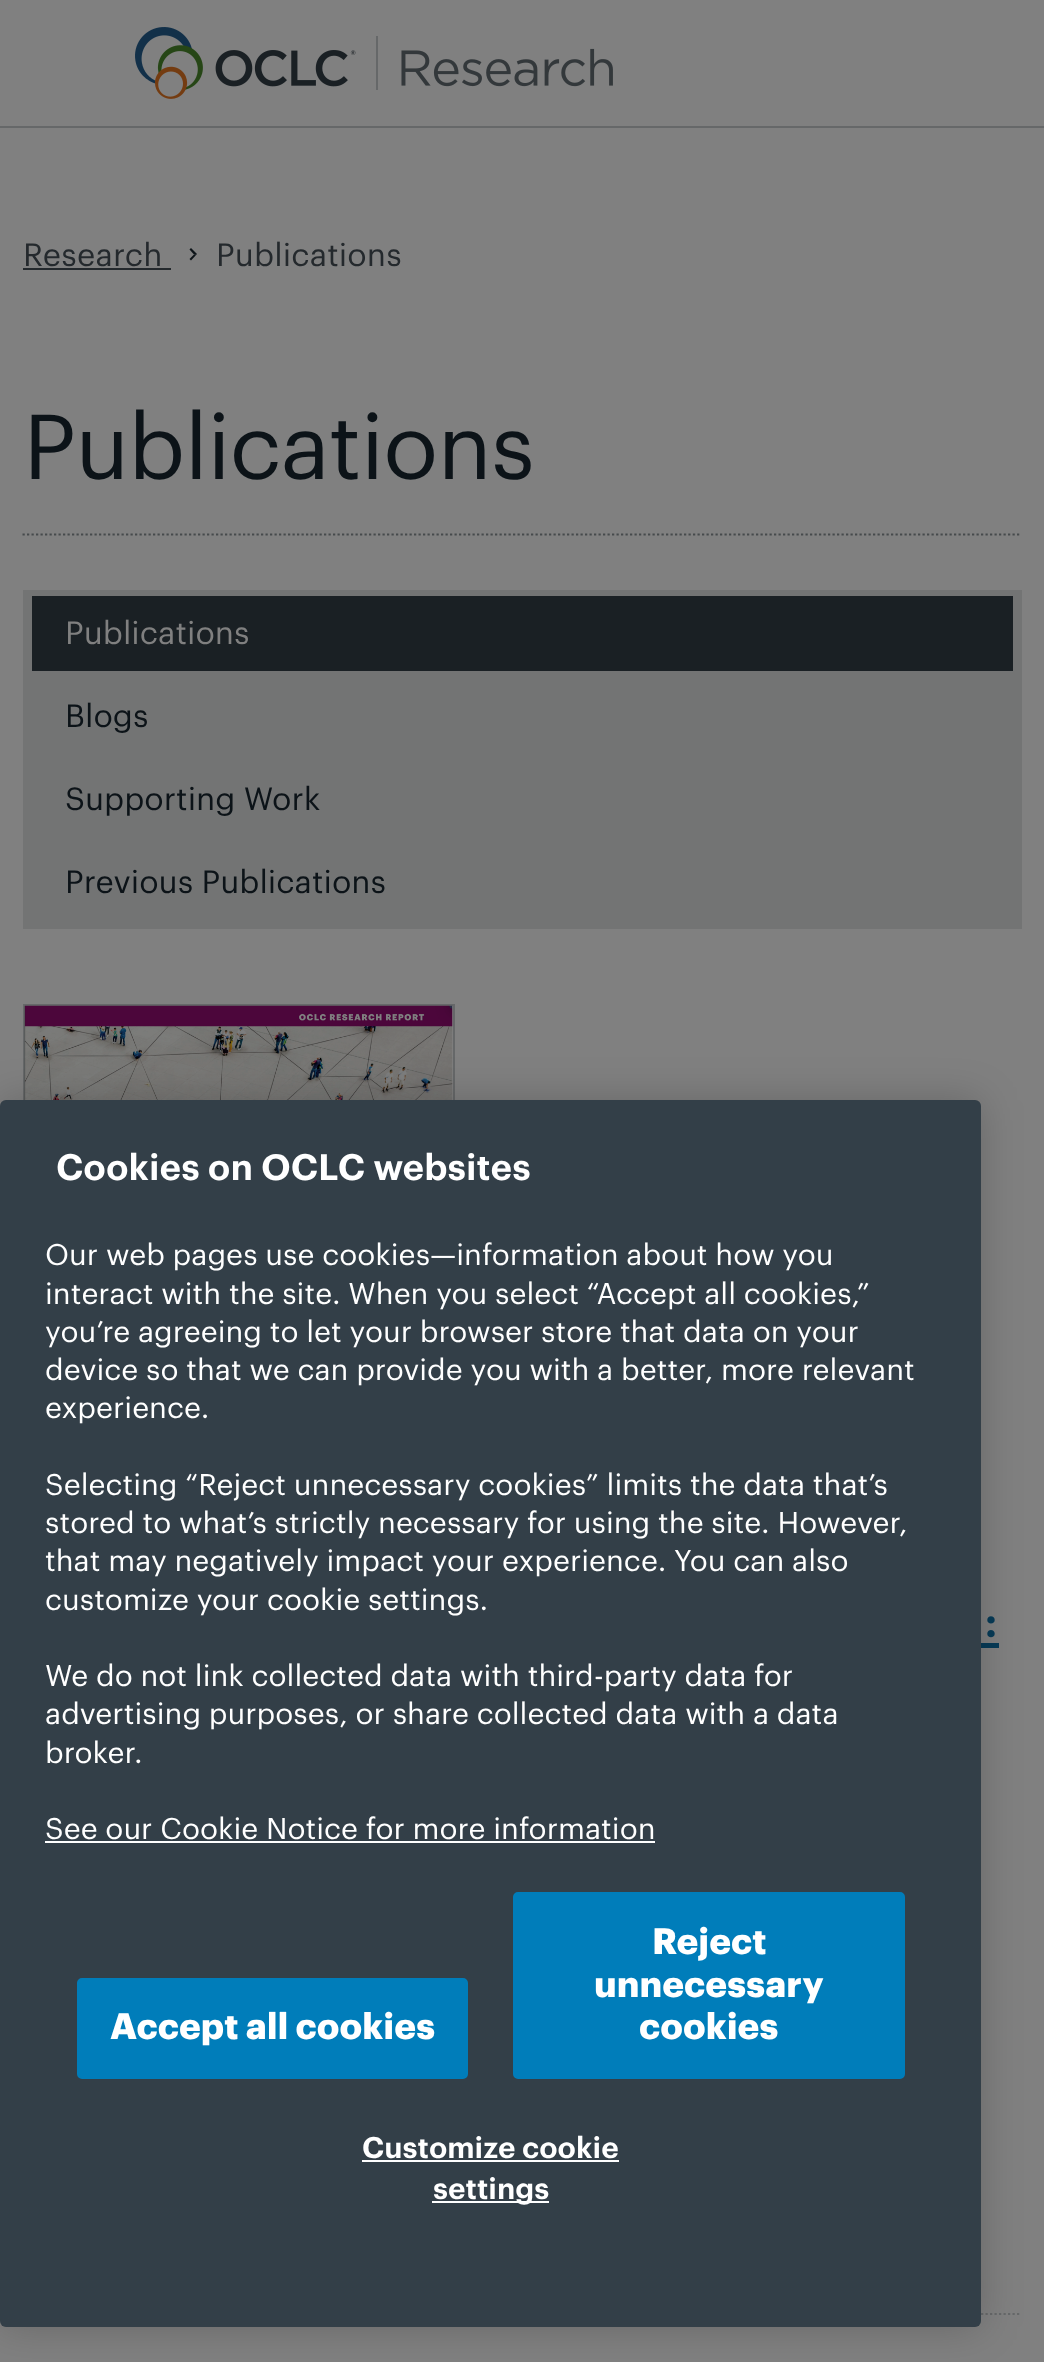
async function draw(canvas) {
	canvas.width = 1044;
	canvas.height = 2362;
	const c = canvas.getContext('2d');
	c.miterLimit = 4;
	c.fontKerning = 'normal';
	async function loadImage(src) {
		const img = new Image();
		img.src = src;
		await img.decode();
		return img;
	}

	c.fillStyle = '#808080';
	c.fillRect(0, 0, 1044, 2362);
	c.fillStyle = '#666869';
	c.fillRect(0, 126, 1044, 2);
	c.drawImage(await loadImage('img1.png'), 135, 27, 221, 72);
	c.fillRect(376, 36, 2, 54);
	c.drawImage(await loadImage('img2.png'), 401, 48, 212, 39);
	c.letterSpacing = '0.1px';
	c.font = '31.5px Graphik';
	c.fillStyle = '#24292d';
	c.fillText('Research', 23, 266);
	c.fillRect(23, 268, 148, 2);
	c.fillStyle = '#0d1419';
	c.beginPath();
	c.moveTo(191, 248);
	c.lineTo(197, 254);
	c.lineTo(194, 254.5);
	c.lineTo(189.5, 249.5);
	c.closePath();
	c.fill();
	c.fillStyle = '#00080de6';
	c.beginPath();
	c.moveTo(197, 254);
	c.lineTo(191, 260.5);
	c.lineTo(189.5, 259);
	c.lineTo(194, 254.5);
	c.closePath();
	c.fill();
	c.fillStyle = '#24292d';
	c.fillText('Publications', 216, 266);
	c.beginPath();
	c.moveTo(22.5, 534.5);
	c.lineTo(1021.5, 534.5);
	c.strokeStyle = '#464a4c';
	c.lineWidth = 2.2;
	c.setLineDash([2.25, 2.25]);
	c.stroke();
	c.letterSpacing = '-1.4px';
	c.font = '90px Graphik';
	c.fillStyle = '#0c1318';
	c.fillText('Publications', 23, 479);
	c.fillStyle = '#737474';
	c.fillRect(23, 590, 999, 339);
	c.fillStyle = '#1a2024';
	c.fillRect(32, 596, 981, 75);
	c.letterSpacing = '0px';
	c.font = '31.5px Graphik';
	c.fillStyle = '#808080';
	c.fillText('Publications', 65, 644);
	c.fillStyle = '#0c1318';
	for (const [text, x, y] of [
		['Blogs', 65, 727],
		['Supporting Work', 65, 810],
		['Previous Publications', 65, 893],
	]) {
		c.fillText(text, x, y);
	}
	c.beginPath();
	c.moveTo(22.5, 2314);
	c.lineTo(1021.5, 2314);
	c.strokeStyle = '#666869';
	c.stroke();
	c.lineWidth = 2;
	c.setLineDash([]);
	c.strokeRect(24, 1005, 430, 558);
	c.drawImage(await loadImage('img3.png'), 24, 1005, 429, 95);
	c.font = '500 47px Graphik';
	c.fillStyle = '#073b57';
	c.fillText(':', 984, 1637);
	c.fillRect(981, 1643, 18, 5);
	c.fillStyle = '#00000033';
	c.filter = 'blur(20px)';
	c.beginPath();
	c.roundRect(0, 1100, 981, 1227, 6);
	c.fill();
	c.filter = 'none';
	c.fillStyle = '#333f48';
	c.beginPath();
	c.roundRect(0, 1100, 981, 1227, 6);
	c.fill();
	c.font = '600 36px Graphik';
	c.fillStyle = '#fff';
	c.fillText('Cookies on OCLC websites', 56, 1180);
	c.font = '29.25px Graphik';
	for (const [text, x, y] of [
		['Our web pages use cookies—information about how you', 45, 1265],
		['interact with the site. When you select “Accept all cookies,”', 45, 1304],
		['you’re agreeing to let your browser store that data on your', 45, 1342],
		['device so that we can provide you with a better, more relevant', 45, 1380],
		['experience.', 45, 1418],
		['Selecting “Reject unnecessary cookies” limits the data that’s', 45, 1495],
		['stored to what’s strictly necessary for using the site. However,', 45, 1533],
		['that may negatively impact your experience. You can also', 45, 1571],
		['customize your cookie settings.', 45, 1610],
		['We do not link collected data with third-party data for', 45, 1686],
		['advertising purposes, or share collected data with a data', 45, 1724],
		['broker.', 45, 1763],
		['See our Cookie Notice for more information', 45, 1839],
	]) {
		c.fillText(text, x, y);
	}
	c.fillRect(45, 1841, 610, 2);
	c.fillStyle = '#007dba';
	c.beginPath();
	c.roundRect(78, 1979, 389, 99, 4);
	c.fill();
	c.strokeStyle = '#007dba';
	c.stroke();
	c.font = 'bold 36px Graphik';
	c.fillStyle = '#fff';
	c.fillText('Accept all cookies', 110, 2039);
	c.fillStyle = '#007dba';
	c.beginPath();
	c.roundRect(514, 1893, 390, 185, 4);
	c.fill();
	c.stroke();
	c.fillStyle = '#fff';
	for (const [text, x, y] of [
		['Reject', 652, 1954],
		['unnecessary', 594, 1997],
		['cookies', 639, 2039],
	]) {
		c.fillText(text, x, y);
	}
	c.font = '600 29.25px Graphik';
	c.fillText('Customize cookie', 362, 2158);
	c.fillRect(362, 2160, 257, 2);
	c.fillRect(432, 2201, 117, 2);
	c.fillText('settings', 433, 2199);
}

draw(document.querySelector('canvas'));
